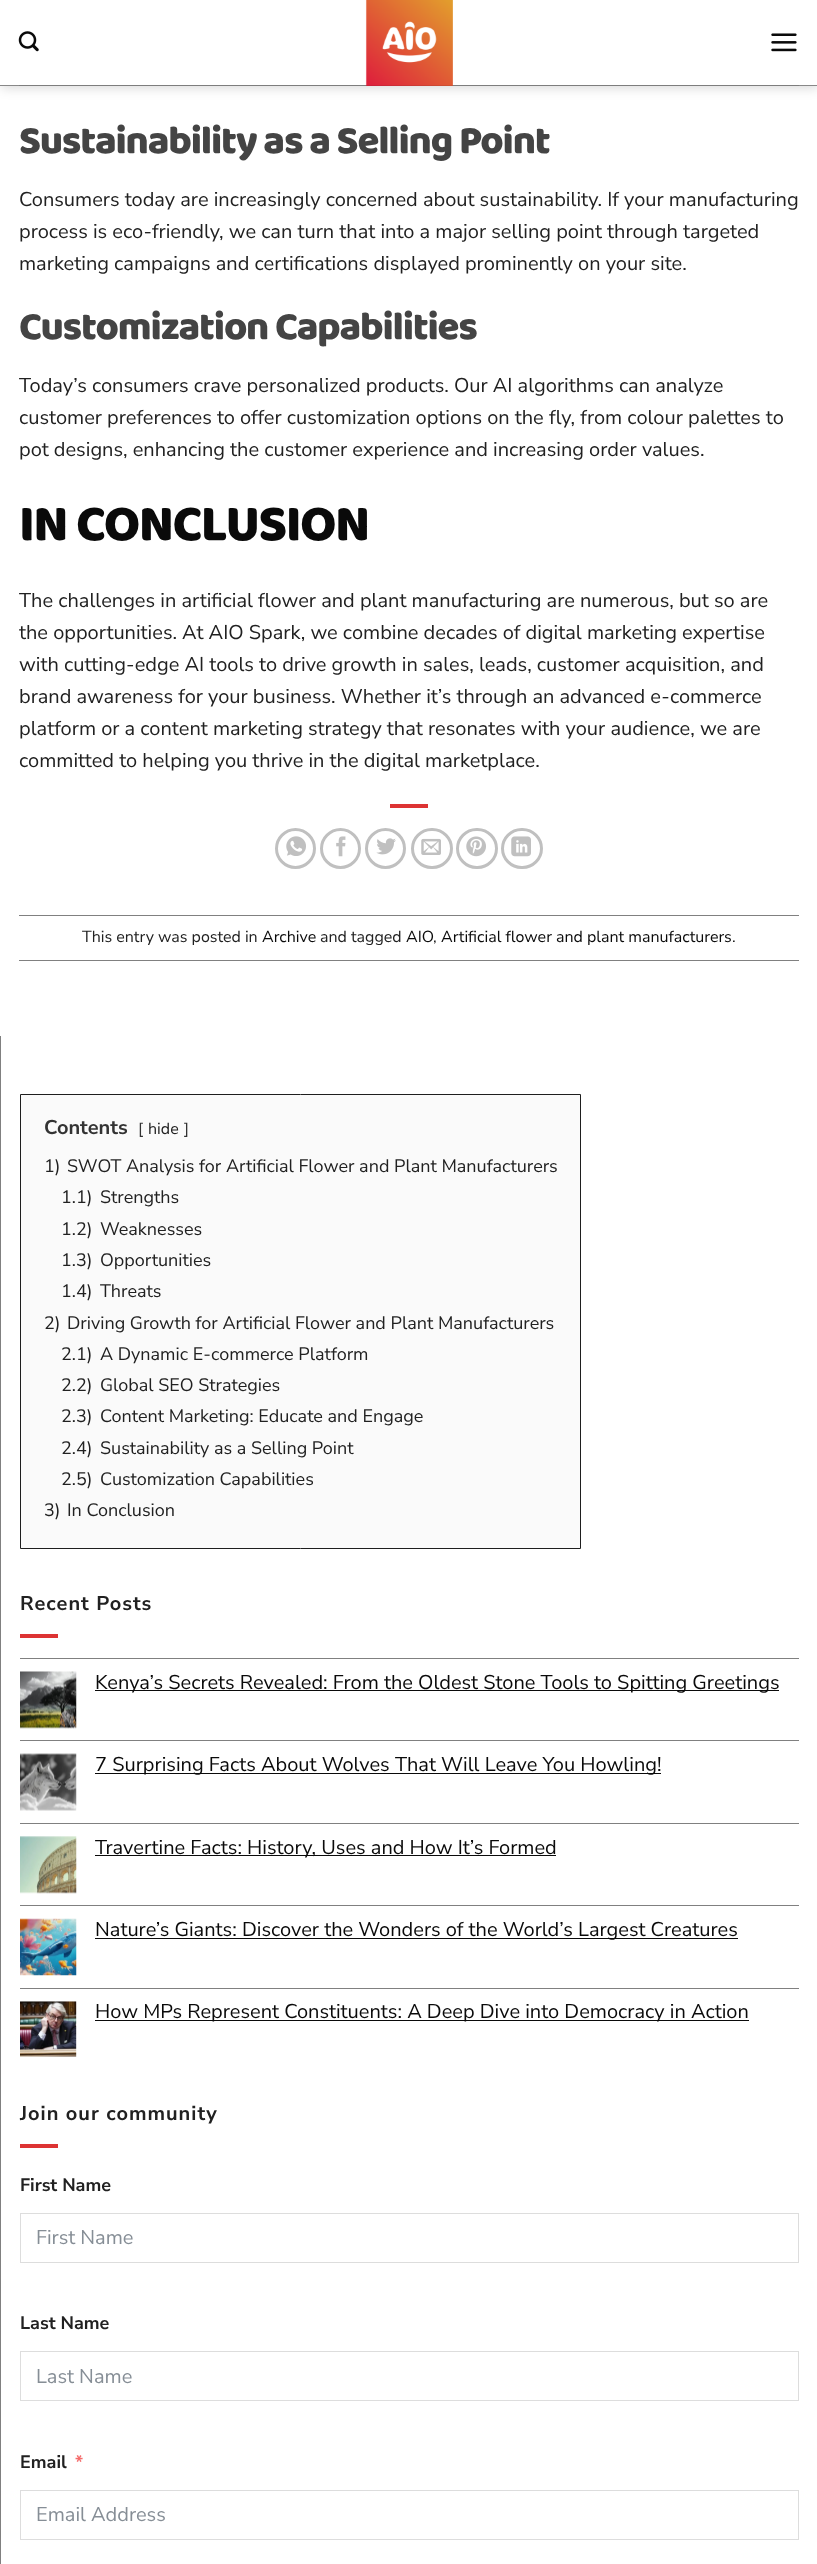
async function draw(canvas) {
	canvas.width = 817;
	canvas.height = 2564;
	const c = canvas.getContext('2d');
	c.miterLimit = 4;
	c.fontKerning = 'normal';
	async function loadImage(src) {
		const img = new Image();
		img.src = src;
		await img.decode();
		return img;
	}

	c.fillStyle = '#fff';
	c.fillRect(0, 0, 817, 2564);
	c.fillStyle = '#00000026';
	c.filter = 'blur(6px)';
	c.beginPath();
	c.rect(1, 1, 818, 87);
	c.fill();
	c.filter = 'none';
	c.fillStyle = '#fff';
	c.fillRect(0, 0, 817, 85);
	c.fillStyle = '#888';
	c.fillRect(0, 85, 817, 1);
	c.drawImage(await loadImage('img1.png'), 18, 31, 21, 21);
	c.drawImage(await loadImage('img2.png'), 365, 0, 88, 86);
	c.drawImage(await loadImage('img3.png'), 771, 33, 26, 19);
	c.fillStyle = '#2121211a';
	c.fillRect(19, 85, 780, 1);
	c.letterSpacing = '-1.2px';
	c.font = '800 40px "Baloo 2"';
	c.fillStyle = '#444';
	c.fillText('Sustainability as a Selling Point', 19, 153);
	c.letterSpacing = '0px';
	c.font = '20px Nunito Sans';
	c.fillStyle = '#212121';
	for (const [text, x, y] of [
		['Consumers today are increasingly concerned about sustainability. If your manufacturing', 19, 206],
		['process is eco-friendly, we can turn that into a major selling point through targeted', 19, 238],
		['marketing campaigns and certifications displayed prominently on your site.', 19, 270],
	]) {
		c.fillText(text, x, y);
	}
	c.letterSpacing = '-1.2px';
	c.font = '800 40px "Baloo 2"';
	c.fillStyle = '#444';
	c.fillText('Customization Capabilities', 19, 339);
	c.letterSpacing = '0px';
	c.font = '20px Nunito Sans';
	c.fillStyle = '#212121';
	for (const [text, x, y] of [
		['Today’s consumers crave personalized products. Our AI algorithms can analyze', 19, 392],
		['customer preferences to offer customization options on the fly, from colour palettes to', 19, 424],
		['pot designs, enhancing the customer experience and increasing order values.', 19, 456],
	]) {
		c.fillText(text, x, y);
	}
	c.letterSpacing = '-1.5px';
	c.font = '800 52px "Baloo 2"';
	c.fillStyle = '#0a0a0a';
	c.fillText('IN CONCLUSION', 19, 540);
	c.letterSpacing = '0px';
	c.font = '20px Nunito Sans';
	c.fillStyle = '#212121';
	for (const [text, x, y] of [
		['The challenges in artificial flower and plant manufacturing are numerous, but so are', 19, 607],
		['the opportunities. At AIO Spark, we combine decades of digital marketing expertise', 19, 639],
		['with cutting-edge AI tools to drive growth in sales, leads, customer acquisition, and', 19, 671],
		['brand awareness for your business. Whether it’s through an advanced e-commerce', 19, 703],
		['platform or a content marketing strategy that resonates with your audience, we are', 19, 735],
		['committed to helping you thrive in the digital marketplace.', 19, 767],
	]) {
		c.fillText(text, x, y);
	}
	c.fillStyle = '#d33';
	c.fillRect(390, 804, 38, 4);
	c.beginPath();
	c.arc(295.5, 848.5, 19, 0, 2 * Math.PI);
	c.strokeStyle = '#c0c0c0';
	c.lineWidth = 3;
	c.stroke();
	c.drawImage(await loadImage('img4.png'), 286, 836, 20, 20);
	c.beginPath();
	c.arc(340.5, 848.5, 19, 0, 2 * Math.PI);
	c.stroke();
	c.drawImage(await loadImage('img5.png'), 336, 836, 10, 21);
	c.beginPath();
	c.arc(385.5, 848.5, 19, 0, 2 * Math.PI);
	c.stroke();
	c.drawImage(await loadImage('img6.png'), 376, 838, 20, 17);
	c.beginPath();
	c.roundRect(412.5, 829.5, 39, 38, 19);
	c.stroke();
	c.drawImage(await loadImage('img7.png'), 421, 838, 20, 17);
	c.beginPath();
	c.roundRect(457.5, 829.5, 39, 38, 19);
	c.stroke();
	c.drawImage(await loadImage('img8.png'), 466, 836, 20, 21);
	c.beginPath();
	c.roundRect(502.5, 829.5, 39, 38, 19);
	c.stroke();
	c.drawImage(await loadImage('img9.png'), 511, 836, 20, 21);
	c.fillStyle = '#808080';
	c.fillRect(19, 915, 780, 1);
	c.fillRect(19, 960, 780, 1);
	c.font = '16px Nunito Sans';
	c.fillStyle = '#212121';
	c.fillText('This entry was posted in', 82, 942);
	c.fillStyle = '#0a0a0a';
	c.fillText('Archive', 262, 942);
	c.fillStyle = '#212121';
	c.fillText('and tagged', 320, 942);
	c.fillStyle = '#0a0a0a';
	c.fillText('AIO', 406, 942);
	c.fillStyle = '#212121';
	c.fillText(',', 433, 942);
	c.fillStyle = '#0a0a0a';
	c.fillText('Artificial flower and plant manufacturers', 441, 942);
	c.fillStyle = '#212121';
	c.fillText('.', 732, 942);
	c.fillStyle = '#808080';
	c.fillRect(0, 1036, 1, 1528);
	c.fillStyle = '#fafafa';
	c.beginPath();
	c.rect(20.5, 1094.5, 560, 454);
	c.fill();
	c.strokeStyle = '#1e1e1e';
	c.lineWidth = 1;
	c.stroke();
	c.font = 'bold 20px Nunito Sans';
	c.fillStyle = '#333';
	c.fillText('Contents', 44, 1134);
	c.font = '16px Nunito Sans';
	c.fillText('[', 138, 1134);
	c.fillStyle = '#212121';
	c.fillText('hide', 148, 1134);
	c.fillStyle = '#333';
	c.fillText(']', 184, 1134);
	c.font = '18px Nunito Sans';
	c.fillStyle = '#212121';
	for (const [text, x, y] of [
		['1)', 44, 1172],
		['SWOT Analysis for Artificial Flower and Plant Manufacturers', 67, 1172],
		['1.1)', 61, 1203],
		['Strengths', 100, 1203],
		['1.2)', 61, 1235],
		['Weaknesses', 100, 1235],
		['1.3)', 61, 1266],
		['Opportunities', 100, 1266],
		['1.4)', 61, 1297],
		['Threats', 100, 1297],
		['2)', 44, 1329],
		['Driving Growth for Artificial Flower and Plant Manufacturers', 67, 1329],
		['2.1)', 61, 1360],
		['A Dynamic E-commerce Platform', 100, 1360],
		['2.2)', 61, 1391],
		['Global SEO Strategies', 100, 1391],
		['2.3)', 61, 1422],
		['Content Marketing: Educate and Engage', 100, 1422],
		['2.4)', 61, 1454],
		['Sustainability as a Selling Point', 100, 1454],
		['2.5)', 61, 1485],
		['Customization Capabilities', 100, 1485],
		['3)', 44, 1516],
		['In Conclusion', 67, 1516],
	]) {
		c.fillText(text, x, y);
	}
	c.letterSpacing = '1px';
	c.font = 'bold 20px Nunito Sans';
	c.fillText('Recent Posts', 20, 1610);
	c.fillStyle = '#d33';
	c.fillRect(20, 1634, 38, 4);
	c.fillStyle = '#808080';
	c.fillRect(20, 1658, 779, 1);
	c.drawImage(await loadImage('img10.png'), 20, 1671, 57, 58);
	c.fillStyle = '#0a0a0a';
	c.fillRect(95, 1690, 684, 1);
	c.letterSpacing = '0px';
	c.font = '20px Nunito Sans';
	c.fillText('Kenya’s Secrets Revealed: From the Oldest Stone Tools to Spitting Greetings', 95, 1689);
	c.fillStyle = '#808080';
	c.fillRect(20, 1740, 779, 1);
	c.drawImage(await loadImage('img11.png'), 20, 1753, 57, 58);
	c.fillStyle = '#0a0a0a';
	c.fillRect(95, 1773, 566, 1);
	c.fillText('7 Surprising Facts About Wolves That Will Leave You Howling!', 95, 1771);
	c.fillStyle = '#808080';
	c.fillRect(20, 1823, 779, 1);
	c.drawImage(await loadImage('img12.png'), 20, 1836, 57, 58);
	c.fillStyle = '#0a0a0a';
	c.fillRect(95, 1855, 461, 1);
	c.fillText('Travertine Facts: History, Uses and How It’s Formed', 95, 1854);
	c.fillStyle = '#808080';
	c.fillRect(20, 1905, 779, 1);
	c.drawImage(await loadImage('img13.png'), 20, 1918, 57, 58);
	c.fillStyle = '#0a0a0a';
	c.fillRect(95, 1938, 643, 1);
	c.fillText('Nature’s Giants: Discover the Wonders of the World’s Largest Creatures', 95, 1936);
	c.fillStyle = '#808080';
	c.fillRect(20, 1988, 779, 1);
	c.drawImage(await loadImage('img14.png'), 20, 2001, 57, 56);
	c.fillStyle = '#0a0a0a';
	c.fillRect(95, 2020, 654, 1);
	c.fillText('How MPs Represent Constituents: A Deep Dive into Democracy in Action', 95, 2018);
	c.letterSpacing = '1px';
	c.font = 'bold 20px Nunito Sans';
	c.fillStyle = '#212121';
	c.fillText('Join our community', 20, 2120);
	c.fillStyle = '#d33';
	c.fillRect(20, 2144, 38, 4);
	c.letterSpacing = '0px';
	c.font = 'bold 18px Nunito Sans';
	c.fillStyle = '#212121';
	c.fillText('First Name', 20, 2191);
	c.strokeStyle = '#ddd';
	c.strokeRect(20.5, 2213.5, 778, 49);
	c.font = '20px Nunito Sans';
	c.fillStyle = '#868e96';
	c.fillText('First Name', 36, 2244);
	c.font = 'bold 18px Nunito Sans';
	c.fillStyle = '#212121';
	c.fillText('Last Name', 20, 2329);
	c.strokeRect(20.5, 2351.5, 778, 49);
	c.font = '20px Nunito Sans';
	c.fillStyle = '#868e96';
	c.fillText('Last Name', 36, 2383);
	c.font = 'bold 18px Nunito Sans';
	c.fillStyle = '#212121';
	c.fillText('Email', 20, 2468);
	c.fillStyle = '#f56c6c';
	c.fillText('*', 75, 2468);
	c.strokeRect(20.5, 2490.5, 778, 49);
	c.font = '20px Nunito Sans';
	c.fillStyle = '#868e96';
	c.fillText('Email Address', 36, 2521);
}

draw(document.querySelector('canvas'));
